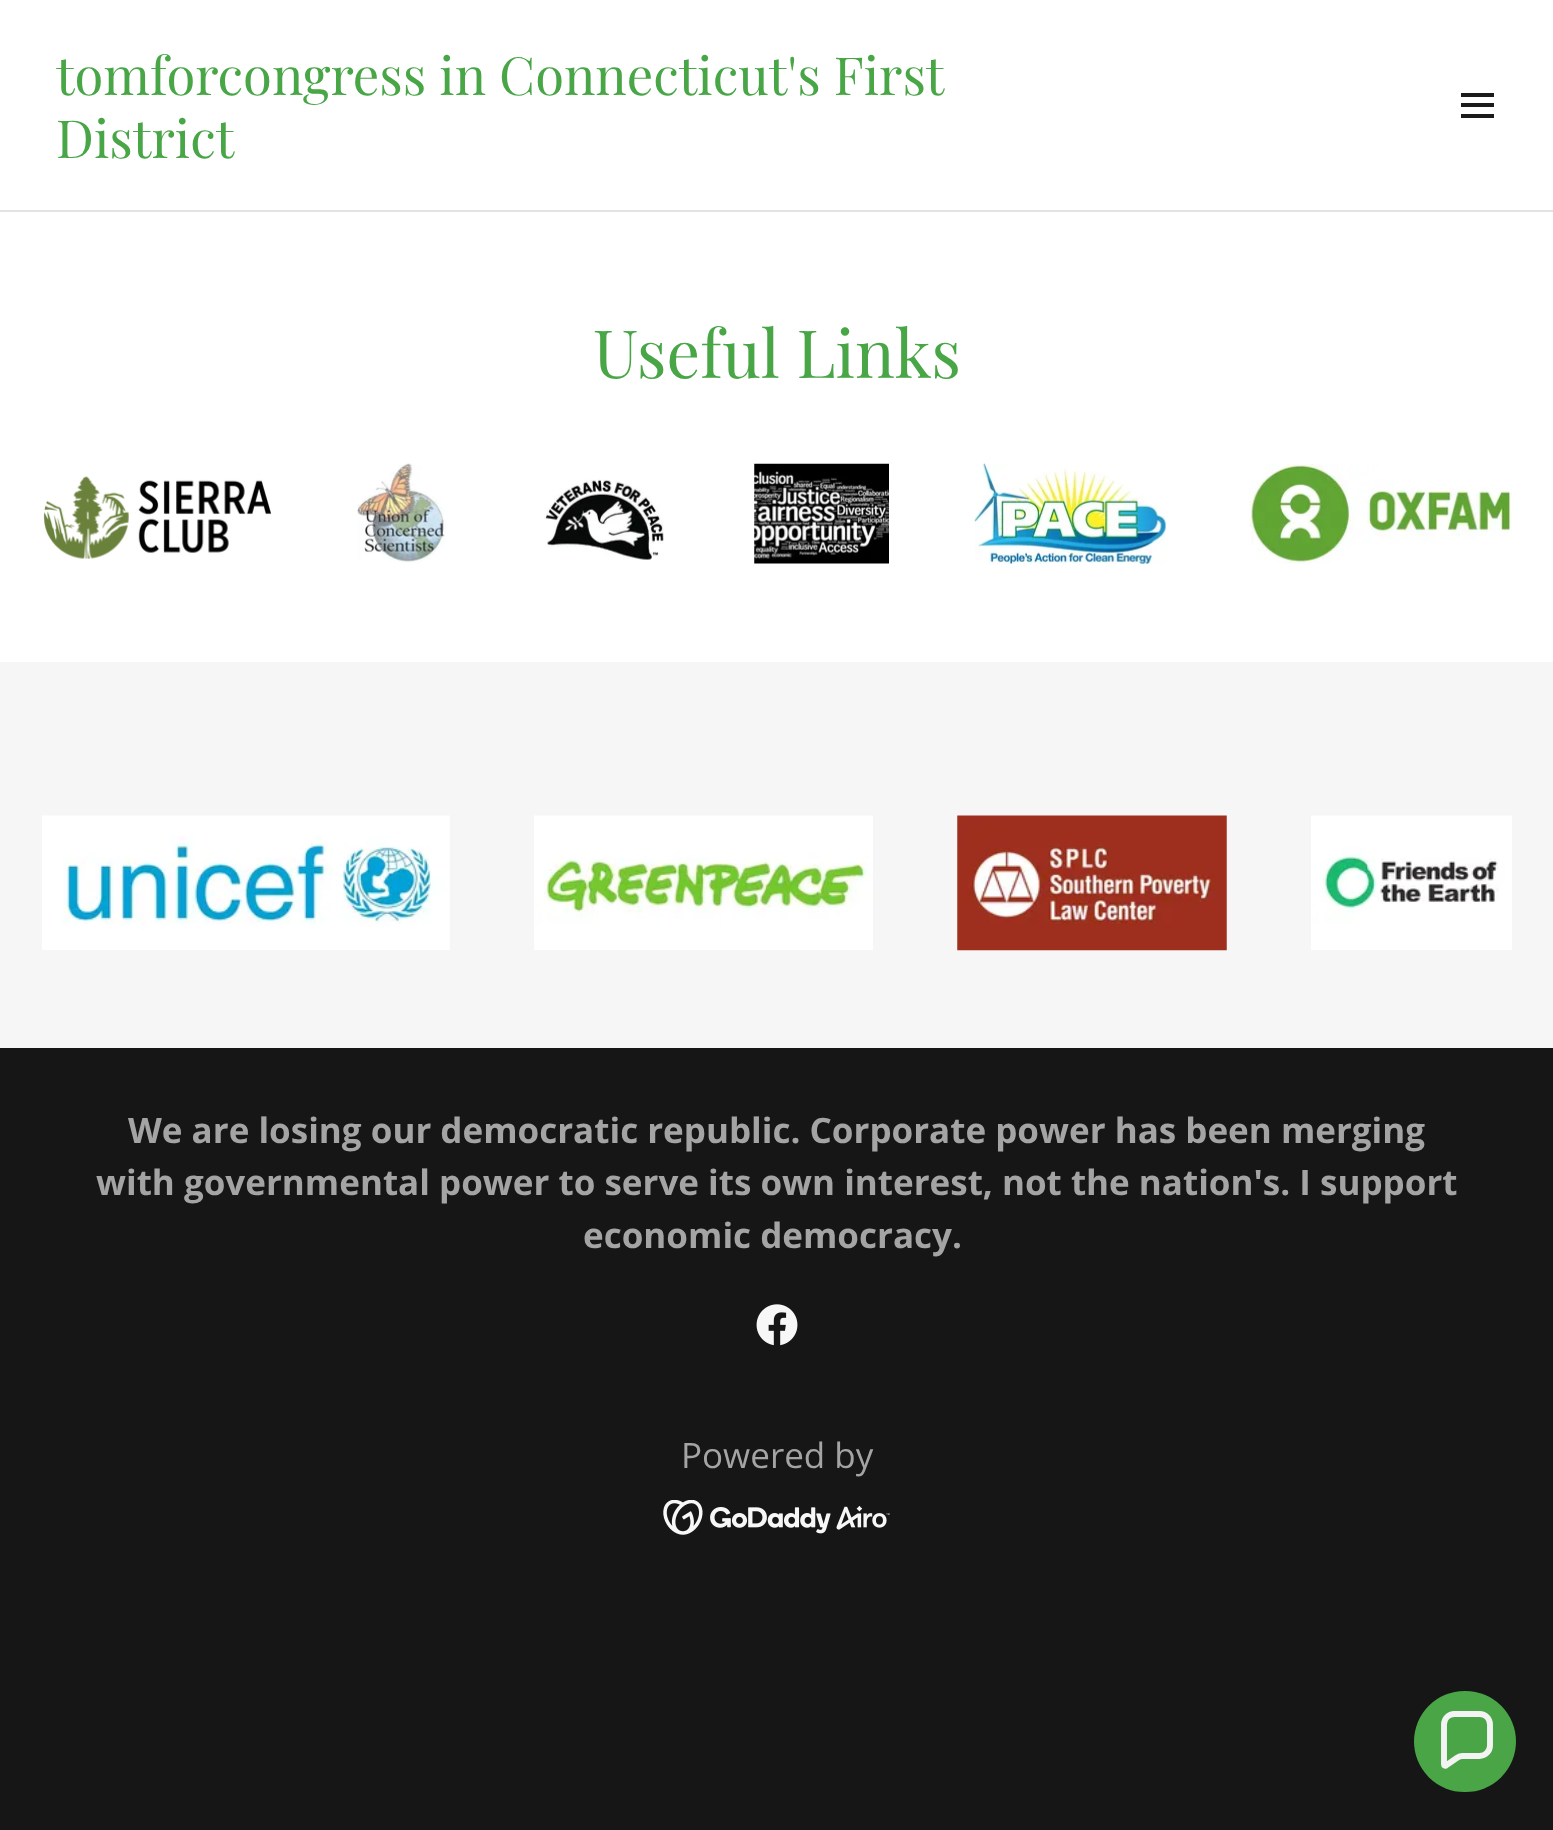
async function draw(canvas) {
	canvas.width = 1553;
	canvas.height = 1830;
	const c = canvas.getContext('2d');
	c.miterLimit = 4;
	c.fontKerning = 'normal';
	async function loadImage(src) {
		const img = new Image();
		img.src = src;
		await img.decode();
		return img;
	}

	c.fillStyle = '#161616';
	c.fillRect(0, 0, 1553, 1830);
	c.fillStyle = '#fff';
	c.fillRect(0, 0, 1553, 210);
	c.font = '52.5px Playfair Display';
	c.fillStyle = '#48a646';
	c.fillText('tomforcongress in Connecticut\'s First', 56, 95);
	c.fillText('District', 56, 158);
	for (const [x, y, w, h, color] of [
		[1461, 93, 33, 4, '#1b1b1b'],
		[1461, 103, 33, 4, '#1b1b1b'],
		[1461, 114, 33, 4, '#1b1b1b'],
		[0, 210, 1553, 2, '#e2e2e2'],
		[0, 212, 1553, 450, '#fff'],
	]) {
		c.fillStyle = color;
		c.fillRect(x, y, w, h);
	}
	c.font = '66.5px Playfair Display';
	c.fillStyle = '#48a646';
	c.fillText('Useful Links', 593, 378);
	c.drawImage(await loadImage('img1.png'), 43, 476, 229, 83);
	c.drawImage(await loadImage('img2.png'), 357, 463, 89, 100);
	c.drawImage(await loadImage('img3.png'), 544, 479, 120, 81);
	c.drawImage(await loadImage('img4.png'), 754, 463, 135, 101);
	c.drawImage(await loadImage('img5.png'), 974, 463, 192, 101);
	c.drawImage(await loadImage('img6.png'), 1249, 463, 263, 101);
	c.fillStyle = '#f6f6f6';
	c.fillRect(0, 662, 1553, 386);
	c.drawImage(await loadImage('img7.png'), 42, 815, 408, 135);
	c.drawImage(await loadImage('img8.png'), 534, 815, 339, 135);
	c.drawImage(await loadImage('img9.png'), 957, 815, 270, 136);
	c.drawImage(await loadImage('img10.png'), 1311, 815, 201, 135);
	c.font = 'bold 35px Open Sans';
	c.fillStyle = '#a4a4a4';
	for (const [text, x, y] of [
		['We are losing our democratic republic. Corporate power has been merging', 128, 1143],
		['with governmental power to serve its own interest, not the nation\'s. I support', 96, 1195],
		['economic democracy.', 583, 1248],
	]) {
		c.fillText(text, x, y);
	}
	c.drawImage(await loadImage('img11.png'), 756, 1304, 42, 42);
	c.font = '35px Open Sans';
	c.fillText('Powered by', 681, 1468);
	c.drawImage(await loadImage('img12.png'), 663, 1500, 227, 35);
	c.fillStyle = '#49a546';
	c.beginPath();
	c.roundRect(1414, 1691, 102, 101, 50.5);
	c.fill();
	c.beginPath();
	c.moveTo(1479.5, 1714);
	c.lineTo(1454.5, 1714);
	c.bezierCurveTo(1448.5, 1714, 1444, 1718.5, 1444, 1724.5);
	c.lineTo(1444, 1764.5);
	c.bezierCurveTo(1444, 1765.5, 1445, 1766, 1446, 1765.5);
	c.lineTo(1457.5, 1757.5);
	c.bezierCurveTo(1459, 1756.5, 1460.5, 1756, 1462.5, 1756);
	c.lineTo(1479.5, 1756);
	c.bezierCurveTo(1485.5, 1756, 1490, 1751, 1490, 1745.5);
	c.lineTo(1490, 1724.5);
	c.bezierCurveTo(1490, 1718.5, 1485.5, 1714, 1479.5, 1714);
	c.closePath();
	c.strokeStyle = '#f3f3f3';
	c.lineWidth = 5.9;
	c.stroke();
}

draw(document.querySelector('canvas'));
